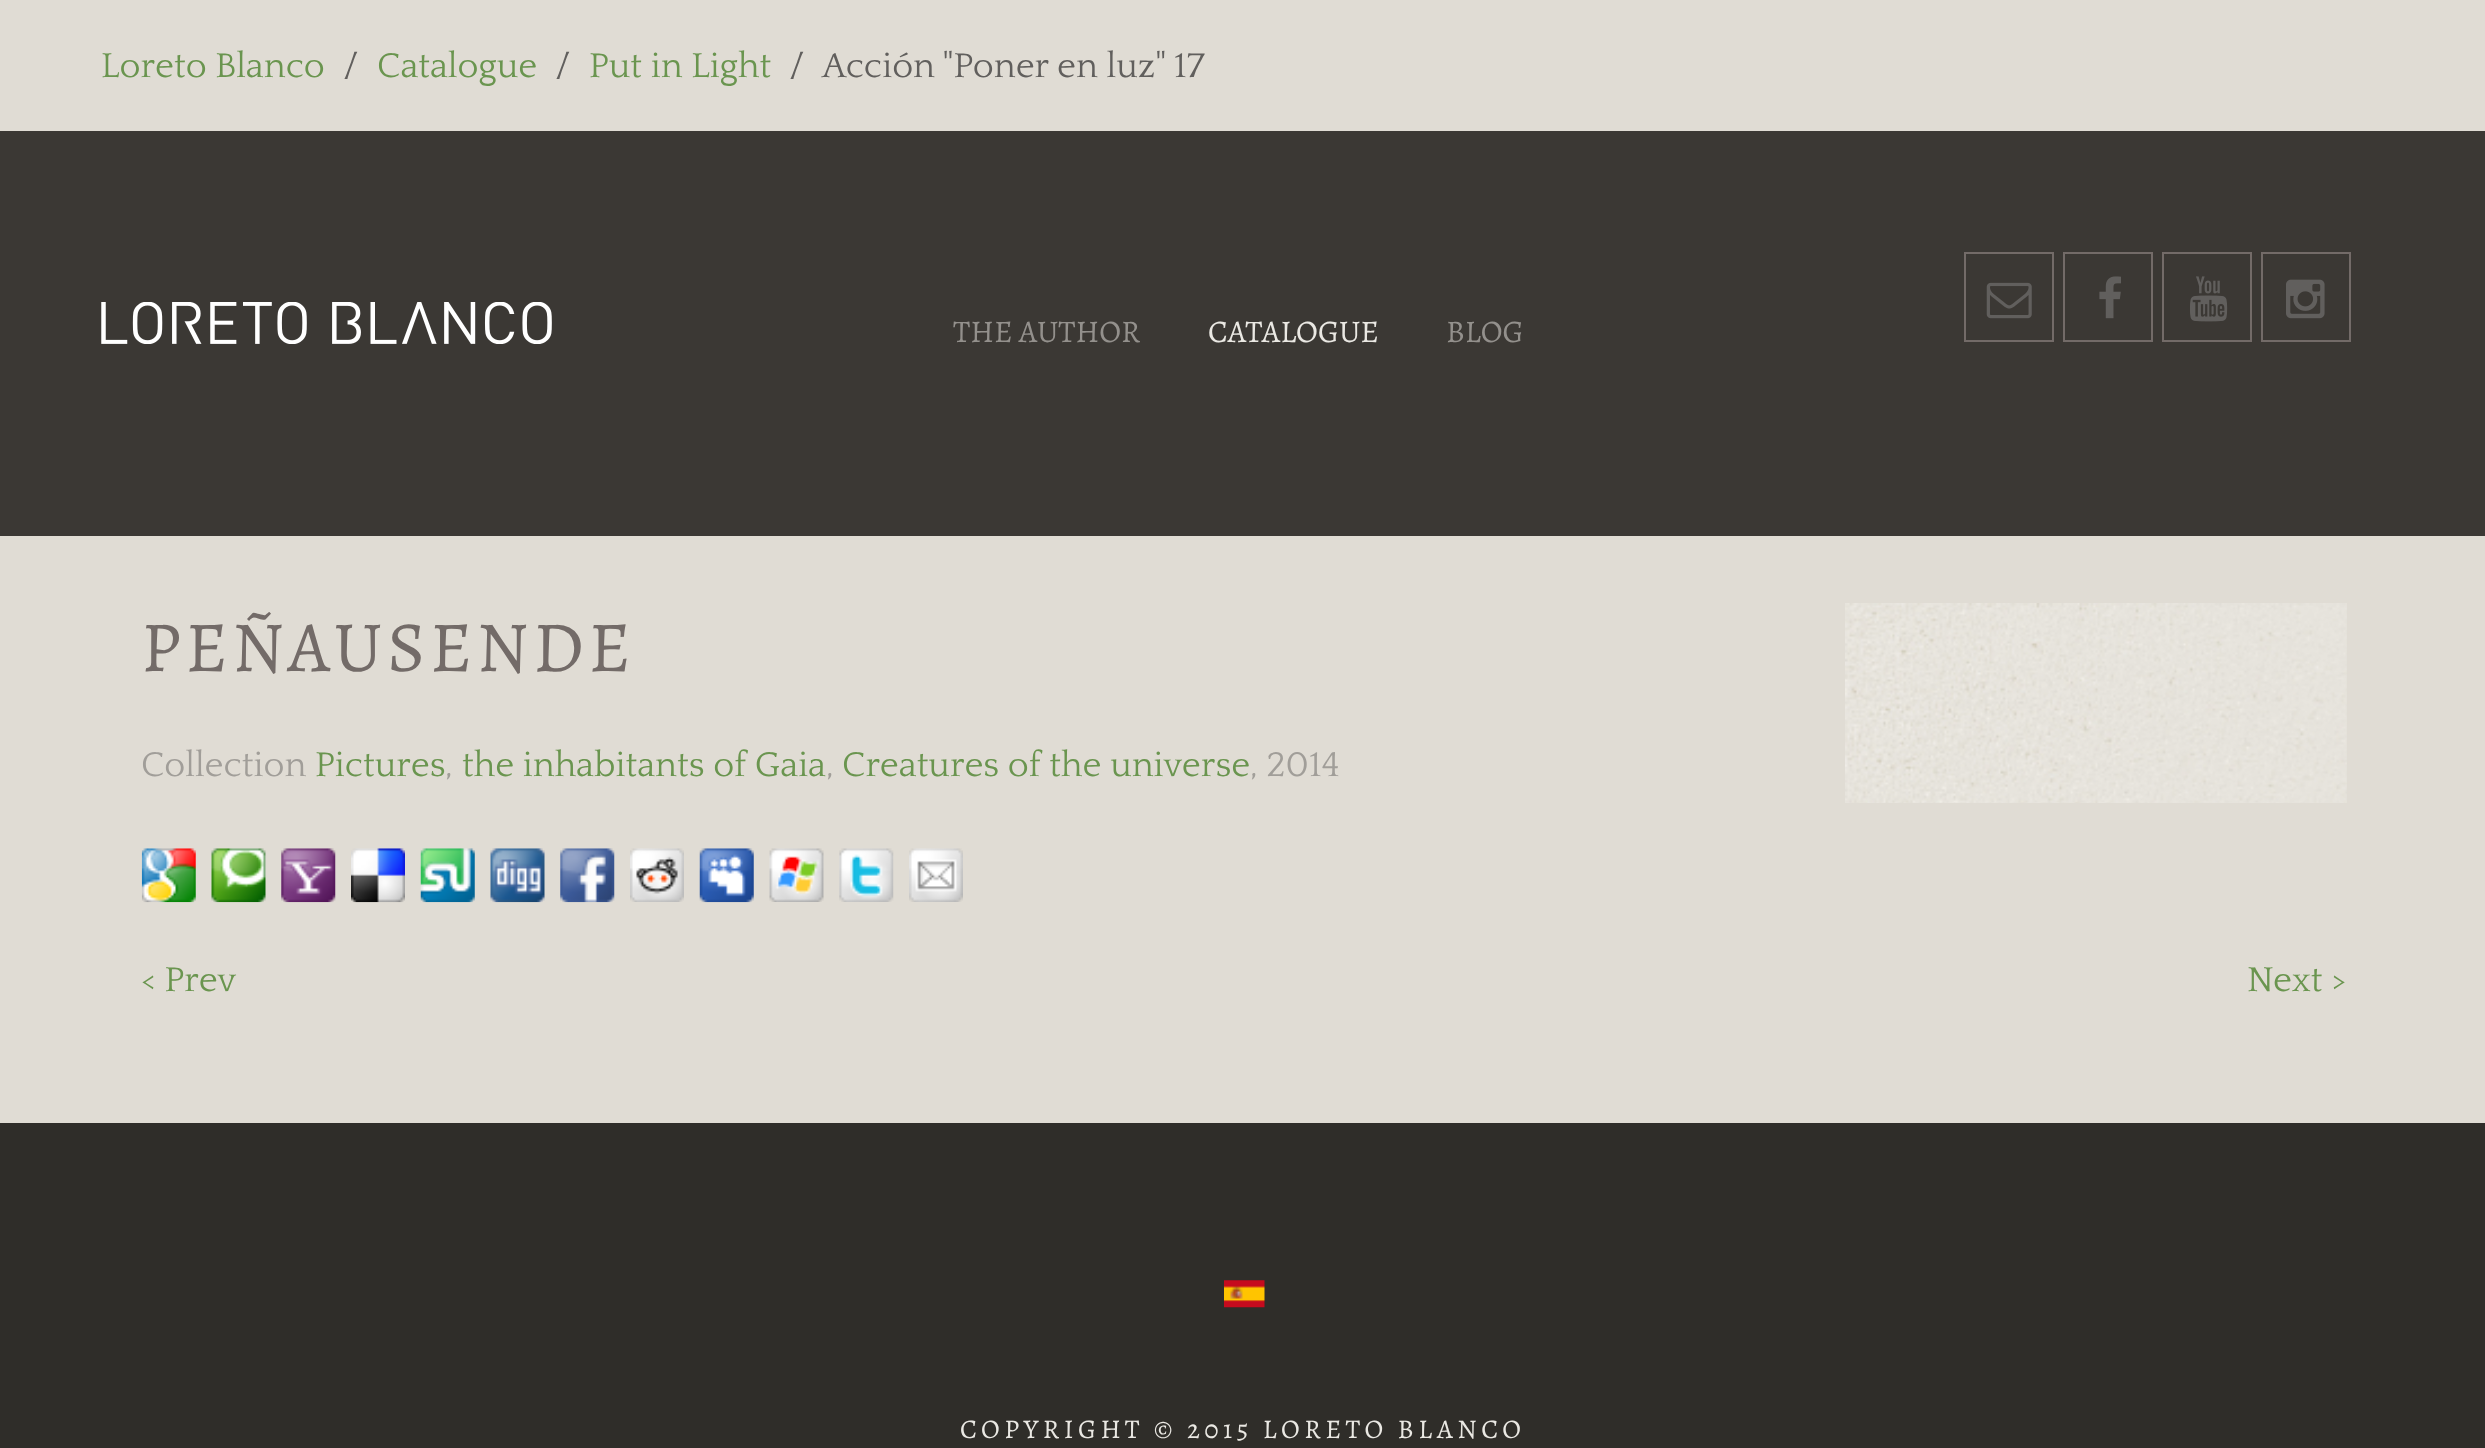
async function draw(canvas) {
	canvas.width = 2485;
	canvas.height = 1448;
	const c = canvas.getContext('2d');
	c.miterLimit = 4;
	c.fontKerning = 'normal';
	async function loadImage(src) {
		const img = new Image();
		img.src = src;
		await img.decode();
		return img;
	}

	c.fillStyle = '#e0dcd4';
	c.fillRect(0, 0, 2485, 1448);
	c.font = '36px Quattrocento';
	c.fillStyle = '#6a954f';
	c.fillText('Loreto Blanco', 101, 77);
	c.fillStyle = '#615f5d';
	c.fillText('/', 343, 77);
	c.fillStyle = '#6a954f';
	c.fillText('Catalogue', 377, 77);
	c.fillStyle = '#615f5d';
	c.fillText('/', 555, 77);
	c.fillStyle = '#6a954f';
	c.fillText('Put in Light', 589, 77);
	c.fillStyle = '#615f5d';
	c.fillText('/', 789, 77);
	c.fillText('Acción "Poner en luz" 17', 822, 77);
	c.fillStyle = '#3b3834';
	c.fillRect(0, 131, 2485, 405);
	c.drawImage(await loadImage('img1.png'), 101, 302, 451, 42);
	c.font = '31.5px Alegreya';
	c.fillStyle = '#93908c';
	c.fillText('THE AUTHOR', 953, 342);
	c.fillStyle = '#eae8e3';
	c.fillText('CATALOGUE', 1208, 342);
	c.fillStyle = '#93908c';
	c.fillText('BLOG', 1446, 342);
	c.strokeStyle = '#736b68';
	c.lineWidth = 2;
	c.strokeRect(1965, 253, 88, 88);
	c.drawImage(await loadImage('img2.png'), 1986, 282, 46, 37);
	c.strokeRect(2064, 253, 88, 88);
	c.drawImage(await loadImage('img3.png'), 2099, 276, 22, 43);
	c.strokeRect(2163, 253, 88, 88);
	c.drawImage(await loadImage('img4.png'), 2190, 276, 38, 46);
	c.strokeRect(2262, 253, 88, 88);
	c.drawImage(await loadImage('img5.png'), 2286, 279, 39, 40);
	c.letterSpacing = '4.5px';
	c.font = '72px Alegreya';
	c.fillStyle = '#736b68';
	c.fillText('PEÑAUSENDE', 141, 671);
	c.letterSpacing = '0px';
	c.font = '36px Quattrocento';
	c.fillStyle = '#a19e99';
	c.fillText('Collection', 141, 776);
	c.fillStyle = '#6a954f';
	c.fillText('Pictures', 315, 776);
	c.fillStyle = '#a19e99';
	c.fillText(',', 445, 776);
	c.fillStyle = '#6a954f';
	c.fillText('the inhabitants of Gaia', 462, 776);
	c.fillStyle = '#a19e99';
	c.fillText(',', 826, 776);
	c.fillStyle = '#6a954f';
	c.fillText('Creatures of the universe', 842, 776);
	c.fillStyle = '#a19e99';
	c.fillText(', 2014', 1250, 776);
	c.drawImage(await loadImage('img6.png'), 1845, 603, 502, 200);
	c.drawImage(await loadImage('img7.png'), 141, 848, 55, 55);
	c.drawImage(await loadImage('img8.png'), 211, 848, 55, 55);
	c.drawImage(await loadImage('img9.png'), 281, 848, 55, 55);
	c.drawImage(await loadImage('img10.png'), 351, 848, 54, 55);
	c.drawImage(await loadImage('img11.png'), 420, 848, 55, 55);
	c.drawImage(await loadImage('img12.png'), 490, 848, 55, 55);
	c.drawImage(await loadImage('img13.png'), 560, 848, 55, 55);
	c.drawImage(await loadImage('img14.png'), 630, 848, 54, 54);
	c.drawImage(await loadImage('img15.png'), 699, 848, 55, 55);
	c.drawImage(await loadImage('img16.png'), 769, 848, 55, 54);
	c.drawImage(await loadImage('img17.png'), 839, 848, 55, 54);
	c.drawImage(await loadImage('img18.png'), 909, 848, 54, 54);
	c.fillStyle = '#6a954f';
	c.fillText('< Prev', 141, 991);
	c.fillText('Next >', 2247, 991);
	c.fillStyle = '#2f2d29';
	c.fillRect(0, 1123, 2485, 325);
	c.drawImage(await loadImage('img19.png'), 1224, 1280, 41, 28);
	c.letterSpacing = '4.5px';
	c.font = '27px Alegreya';
	c.fillStyle = '#eae8e3';
	c.fillText('COPYRIGHT © 2015 LORETO BLANCO', 960, 1438);
}

draw(document.querySelector('canvas'));
